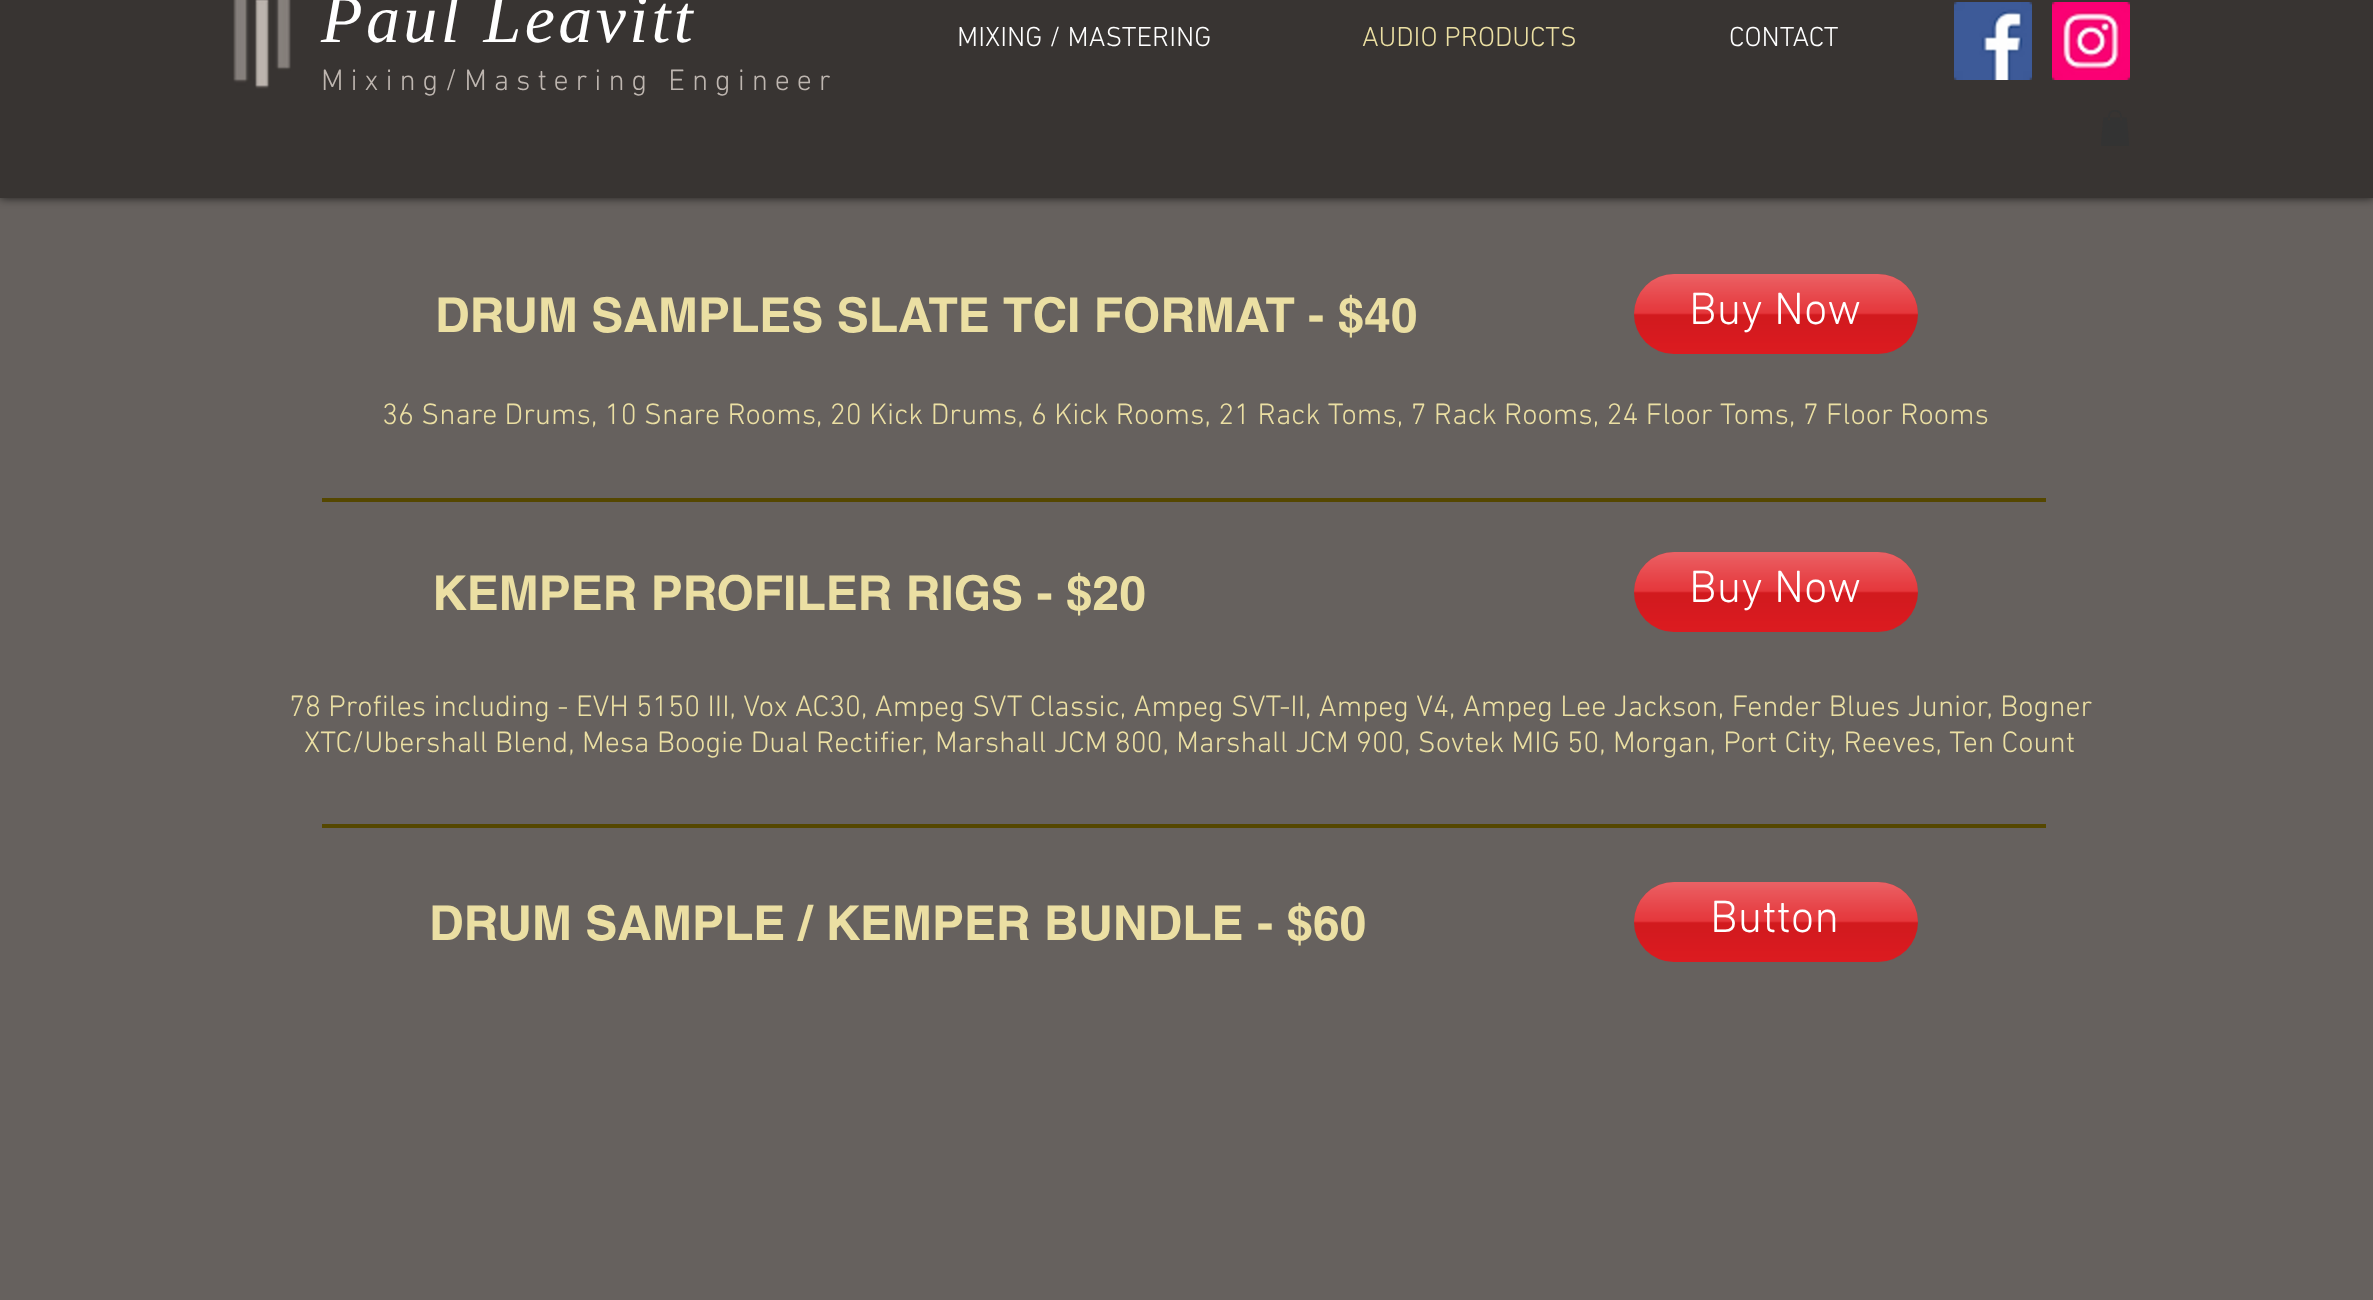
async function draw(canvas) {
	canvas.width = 2373;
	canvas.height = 1300;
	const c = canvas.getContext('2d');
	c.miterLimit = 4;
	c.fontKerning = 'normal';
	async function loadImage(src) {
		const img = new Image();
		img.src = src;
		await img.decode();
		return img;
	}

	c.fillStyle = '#66615e';
	c.fillRect(0, 0, 2373, 1300);
	c.fillStyle = '#000000b3';
	c.filter = 'blur(5px)';
	c.beginPath();
	c.rect(0, -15, 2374, 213);
	c.fill();
	c.filter = 'none';
	c.fillStyle = '#383432';
	c.fillRect(0, 0, 2373, 198);
	c.drawImage(await loadImage('img1.png'), 233, 0, 58, 89);
	c.letterSpacing = '3.4px';
	c.font = 'italic 68px Liberation Serif';
	c.fillStyle = '#fff';
	c.fillText('Paul Leavitt', 321, 42);
	c.letterSpacing = '6.9px';
	c.font = '300 30px "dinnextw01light"';
	c.fillStyle = '#beb6b0';
	c.fillText('Mixing/Mastering Engineer', 321, 90);
	c.letterSpacing = '0px';
	c.font = '300 28px "dinnextw01light"';
	c.fillStyle = '#fff';
	c.fillText('MIXING / MASTERING', 957, 46);
	c.fillStyle = '#ebdfa3';
	c.fillText('AUDIO PRODUCTS', 1362, 46);
	c.fillStyle = '#fff';
	c.fillText('CONTACT', 1729, 46);
	c.drawImage(await loadImage('img2.png'), 1954, 2, 78, 78);
	c.drawImage(await loadImage('img3.png'), 2052, 2, 78, 78);
	c.drawImage(await loadImage('img4.png'), 2101, 110, 28, 36);
	c.font = 'bold 48px helvetica';
	c.fillStyle = '#ebdfa3';
	c.fillText('DRUM SAMPLES SLATE TCI FORMAT - $40', 435, 332);
	c.fillStyle = '#e21c21';
	c.beginPath();
	c.roundRect(1634, 274, 284, 80, 40);
	c.fill();
	c.drawImage(await loadImage('img5.png'), 1634, 274, 284, 80);
	c.font = '300 46px "dinnextw01light"';
	c.fillStyle = '#fff';
	c.fillText('Buy Now', 1689, 324);
	c.font = '300 30px "dinnextw01light"';
	c.fillStyle = '#ebdfa3';
	c.fillText('36 Snare Drums, 10 Snare Rooms, 20 Kick Drums, 6 Kick Rooms, 21 Rack Toms, 7 Rack Rooms, 24 Floor Toms, 7 Floor Rooms', 382, 424);
	c.fillStyle = '#554700';
	c.fillRect(322, 498, 1724, 4);
	c.font = 'bold 48px helvetica';
	c.fillStyle = '#ebdfa3';
	c.fillText('KEMPER PROFILER RIGS - $20', 432, 610);
	c.fillStyle = '#e21c21';
	c.beginPath();
	c.roundRect(1634, 552, 284, 80, 40);
	c.fill();
	c.drawImage(await loadImage('img5.png'), 1634, 552, 284, 80);
	c.font = '300 46px "dinnextw01light"';
	c.fillStyle = '#fff';
	c.fillText('Buy Now', 1689, 602);
	c.font = '300 30px "dinnextw01light"';
	c.fillStyle = '#ebdfa3';
	c.fillText('78 Profiles including - EVH 5150 III, Vox AC30, Ampeg SVT Classic, Ampeg SVT-II, Ampeg V4, Ampeg Lee Jackson, Fender Blues Junior, Bogner', 289, 716);
	c.fillText('XTC/Ubershall Blend, Mesa Boogie Dual Rectifier, Marshall JCM 800, Marshall JCM 900, Sovtek MIG 50, Morgan, Port City, Reeves, Ten Count', 304, 752);
	c.fillStyle = '#554700';
	c.fillRect(322, 824, 1724, 4);
	c.font = 'bold 48px helvetica';
	c.fillStyle = '#ebdfa3';
	c.fillText('DRUM SAMPLE / KEMPER BUNDLE - $60', 429, 940);
	c.fillStyle = '#e21c21';
	c.beginPath();
	c.roundRect(1634, 882, 284, 80, 40);
	c.fill();
	c.drawImage(await loadImage('img6.png'), 1634, 882, 284, 80);
	c.font = '300 46px "dinnextw01light"';
	c.fillStyle = '#fff';
	c.fillText('Button', 1710, 932);
}

draw(document.querySelector('canvas'));
